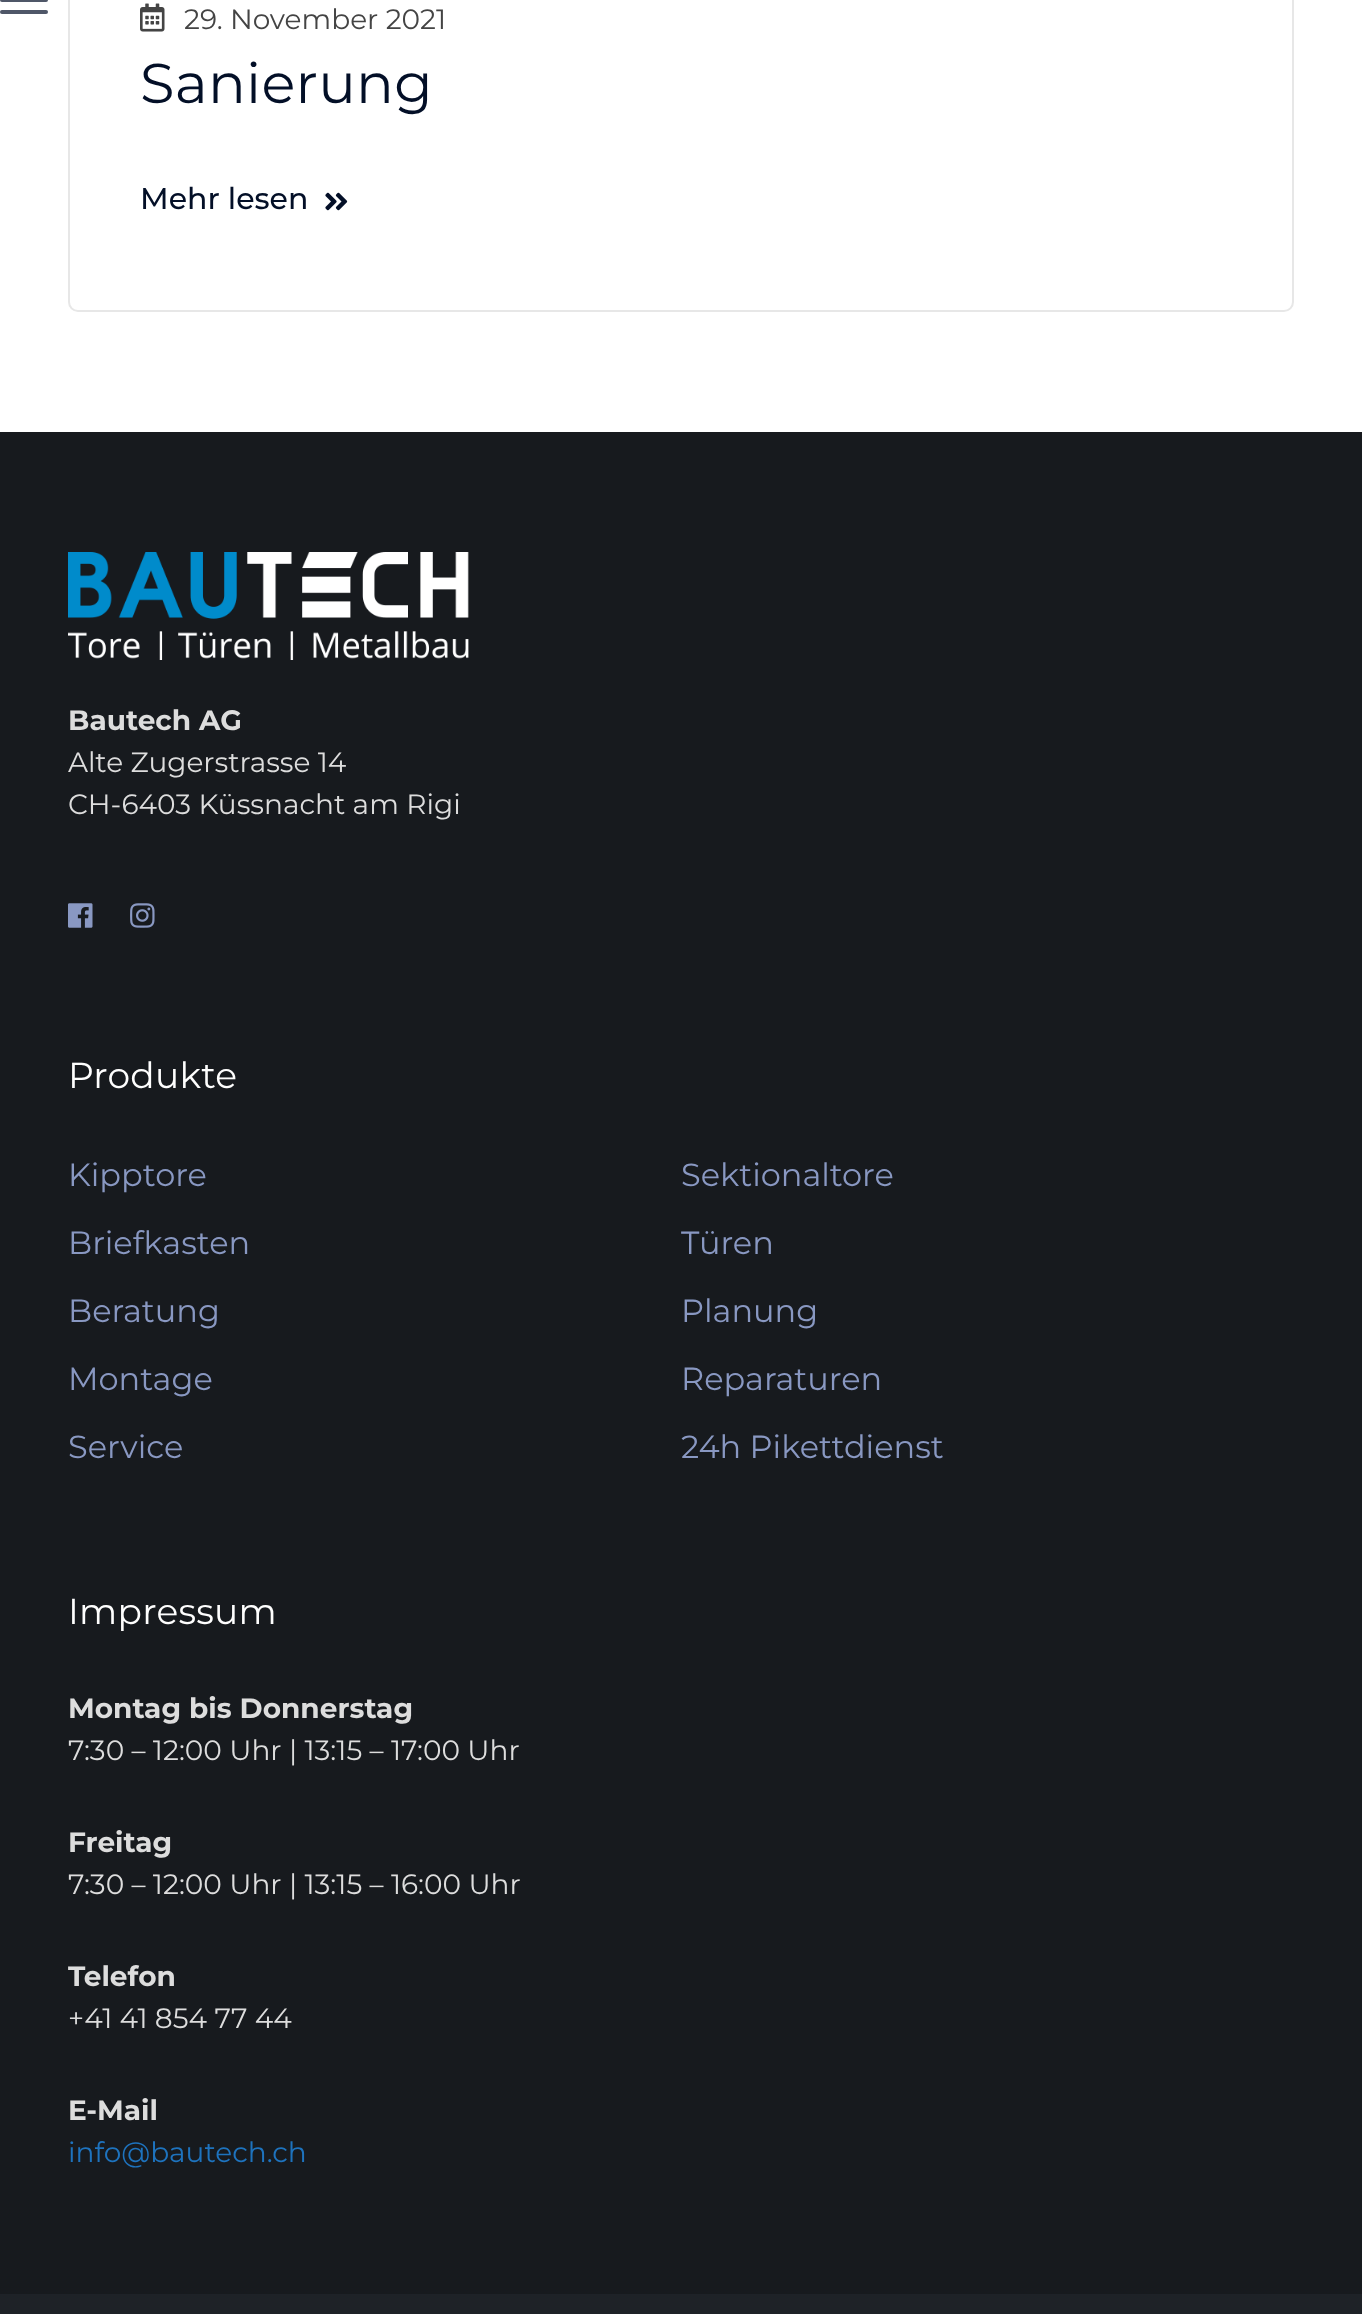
async function draw(canvas) {
	canvas.width = 1362;
	canvas.height = 2314;
	const c = canvas.getContext('2d');
	c.miterLimit = 4;
	c.fontKerning = 'normal';
	async function loadImage(src) {
		const img = new Image();
		img.src = src;
		await img.decode();
		return img;
	}

	c.fillStyle = '#fff';
	c.fillRect(0, 0, 1362, 2314);
	c.fillStyle = '#4f5768';
	c.beginPath();
	c.roundRect(0, -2, 48, 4, 2);
	c.fill();
	c.beginPath();
	c.roundRect(0, 10, 48, 4, 2);
	c.fill();
	c.beginPath();
	c.moveTo(69, -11);
	c.lineTo(1293, -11);
	c.lineTo(1293, 302);
	c.bezierCurveTo(1293, 307, 1289, 311, 1284, 311);
	c.lineTo(78, 311);
	c.bezierCurveTo(73, 311, 69, 307, 69, 302);
	c.closePath();
	c.strokeStyle = '#e7e7e7';
	c.lineWidth = 2;
	c.stroke();
	c.drawImage(await loadImage('img1.png'), 140, 3, 25, 29);
	c.font = '28px Montserrat';
	c.fillStyle = '#444';
	c.fillText('29. November 2021', 184, 29);
	c.letterSpacing = '0.25px';
	c.font = '56px Montserrat';
	c.fillStyle = '#030f27';
	c.fillText('Sanierung', 140, 103);
	c.letterSpacing = '0px';
	c.font = '500 30px Montserrat';
	c.fillText('Mehr lesen', 140, 209);
	c.drawImage(await loadImage('img2.png'), 325, 192, 23, 19);
	c.fillStyle = '#171a1e';
	c.fillRect(0, 432, 1362, 1862);
	c.drawImage(await loadImage('img3.png'), 68, 552, 401, 108);
	c.font = 'bold 28px Montserrat';
	c.fillStyle = '#ddd';
	c.fillText('Bautech AG', 68, 730);
	c.font = '28px Montserrat';
	c.fillText('Alte Zugerstrasse 14', 68, 772);
	c.fillText('CH-6403 Küssnacht am Rigi', 68, 814);
	c.drawImage(await loadImage('img4.png'), 68, 903, 25, 25);
	c.drawImage(await loadImage('img5.png'), 130, 903, 25, 25);
	c.letterSpacing = '0.25px';
	c.font = '36px Montserrat';
	c.fillStyle = '#fefefe';
	c.fillText('Produkte', 68, 1088);
	c.letterSpacing = '0px';
	c.font = '32px Montserrat';
	c.fillStyle = '#8998c2';
	for (const [text, x, y] of [
		['Kipptore', 68, 1186],
		['Sektionaltore', 681, 1186],
		['Briefkasten', 68, 1254],
		['Türen', 681, 1254],
		['Beratung', 68, 1322],
		['Planung', 681, 1322],
		['Montage', 68, 1390],
		['Reparaturen', 681, 1390],
		['Service', 68, 1458],
		['24h Pikettdienst', 681, 1458],
	]) {
		c.fillText(text, x, y);
	}
	c.letterSpacing = '0.25px';
	c.font = '36px Montserrat';
	c.fillStyle = '#fefefe';
	c.fillText('Impressum', 68, 1624);
	c.letterSpacing = '0px';
	c.font = 'bold 28px Montserrat';
	c.fillStyle = '#ddd';
	c.fillText('Montag bis Donnerstag', 68, 1718);
	c.font = '28px Montserrat';
	c.fillText('7:30 – 12:00 Uhr | 13:15 – 17:00 Uhr', 68, 1760);
	c.font = 'bold 28px Montserrat';
	c.fillText('Freitag', 68, 1852);
	c.font = '28px Montserrat';
	c.fillText('7:30 – 12:00 Uhr | 13:15 – 16:00 Uhr', 68, 1894);
	c.font = 'bold 28px Montserrat';
	c.fillText('Telefon', 68, 1986);
	c.font = '28px Montserrat';
	c.fillText('+41 41 854 77 44', 68, 2028);
	c.font = 'bold 28px Montserrat';
	c.fillText('E-Mail', 68, 2120);
	c.font = '28px Montserrat';
	c.fillStyle = '#1e73be';
	c.fillText('info@bautech.ch', 68, 2162);
	c.fillStyle = '#1e2227';
	c.fillRect(0, 2294, 1362, 20);
}

draw(document.querySelector('canvas'));
